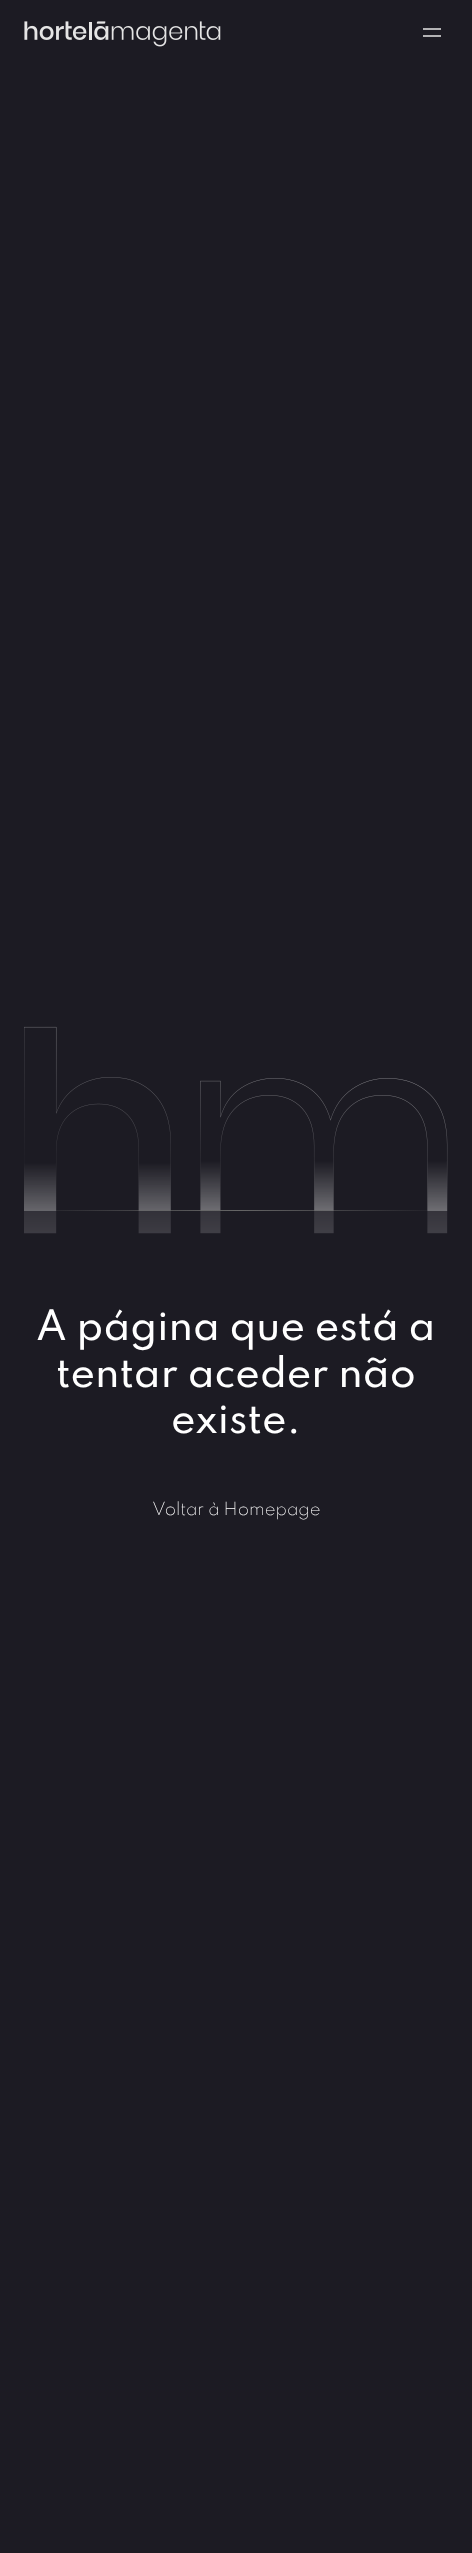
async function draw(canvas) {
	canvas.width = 472;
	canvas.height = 2553;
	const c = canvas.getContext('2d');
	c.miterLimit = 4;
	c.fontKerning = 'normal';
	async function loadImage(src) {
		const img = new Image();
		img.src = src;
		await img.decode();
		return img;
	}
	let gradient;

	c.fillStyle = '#1c1b23';
	c.fillRect(0, 0, 472, 2553);
	c.drawImage(await loadImage('img1.png'), 24, 21, 197, 26);
	c.fillStyle = '#b3b3b5';
	c.fillRect(423, 35, 18, 2);
	c.fillRect(423, 28, 18, 2);
	c.drawImage(await loadImage('img2.png'), 24, 1026, 424, 208);
	c.fillStyle = '#1c1b23b3';
	c.fillRect(24, 1211, 424, 23);
	gradient = c.createLinearGradient(18, 1211, 448, 1211);
	gradient.addColorStop(0, '#d9d9d9');
	gradient.addColorStop(0, '#d9d9d900');
	gradient.addColorStop(0, '#66666600');
	gradient.addColorStop(0.51, '#666');
	gradient.addColorStop(1, '#66666600');
	c.fillStyle = gradient;
	c.fillRect(56, 1210, 371, 1);
	c.font = '500 37.25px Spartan';
	c.fillStyle = '#fff';
	for (const [text, x, y] of [
		['A página que está a', 36, 1340],
		['tentar aceder não', 56, 1387],
		['existe.', 171, 1433],
	]) {
		c.fillText(text, x, y);
	}
	c.font = '200 16px Spartan';
	c.fillText('Voltar à Homepage', 152, 1515);
}

draw(document.querySelector('canvas'));
